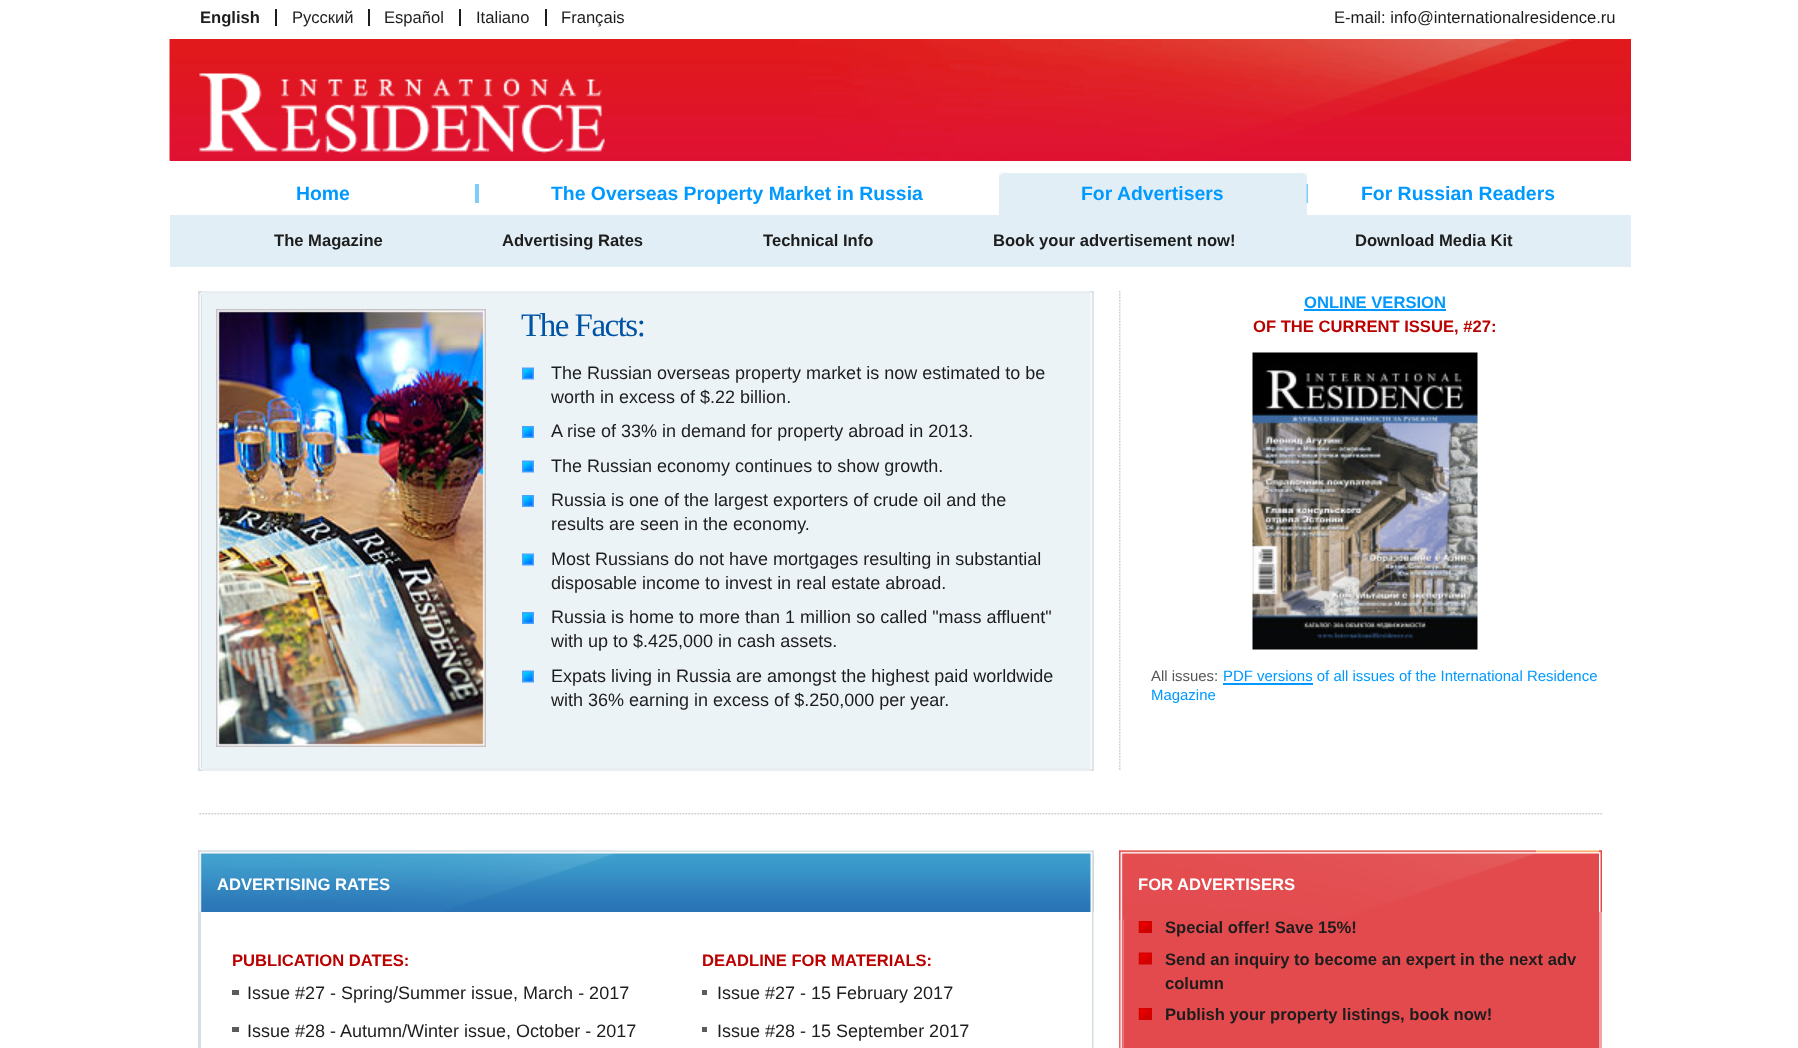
async function draw(canvas) {
	canvas.width = 1798;
	canvas.height = 1048;
	const c = canvas.getContext('2d');
	c.miterLimit = 4;
	c.fontKerning = 'normal';
	async function loadImage(src) {
		const img = new Image();
		img.src = src;
		await img.decode();
		return img;
	}

	c.fillStyle = '#fff';
	c.fillRect(0, 0, 1798, 1048);
	c.font = 'bold 16.6px Liberation Sans';
	c.fillStyle = '#1d1d1d';
	c.fillText('English', 200, 23);
	c.fillRect(275, 9, 2, 17);
	c.font = '16.6px Liberation Sans';
	c.fillText('Русский', 292, 23);
	c.fillRect(368, 9, 2, 17);
	c.fillText('Español', 384, 23);
	c.fillRect(459, 9, 2, 17);
	c.fillText('Italiano', 476, 23);
	c.fillRect(545, 9, 2, 17);
	c.fillText('Français', 561, 23);
	c.fillText('E-mail: info@internationalresidence.ru', 1334, 23);
	c.fillStyle = '#df1231';
	c.fillRect(170, 39, 1461, 122);
	c.drawImage(await loadImage('img1.png'), 169, 39, 1462, 122);
	c.drawImage(await loadImage('img2.png'), 199, 73, 406, 81);
	c.font = 'bold 19.4px Liberation Sans';
	c.fillStyle = '#09f';
	c.fillText('Home', 296, 200);
	c.fillStyle = '#7bcef6';
	c.fillRect(475, 184, 4, 19);
	c.fillStyle = '#09f';
	c.fillText('The Overseas Property Market in Russia', 551, 200);
	c.fillStyle = '#e1eef5';
	c.fillRect(999, 173, 308, 42);
	c.drawImage(await loadImage('img3.png'), 999, 172, 6, 4);
	c.fillStyle = '#7bcef6';
	c.fillRect(1306, 184, 2, 19);
	c.drawImage(await loadImage('img4.png'), 1302, 172, 5, 31);
	c.fillStyle = '#09f';
	c.fillText('For Advertisers', 1081, 200);
	c.fillText('For Russian Readers', 1361, 200);
	c.fillStyle = '#e1eef5';
	c.fillRect(170, 215, 1461, 52);
	c.font = 'bold 16.6px Liberation Sans';
	c.fillStyle = '#1d1d1d';
	for (const [text, x, y] of [
		['The Magazine', 274, 246],
		['Advertising Rates', 502, 246],
		['Technical Info', 763, 246],
		['Book your advertisement now!', 993, 246],
		['Download Media Kit', 1355, 246],
	]) {
		c.fillText(text, x, y);
	}
	c.drawImage(await loadImage('img5.png'), 1119, 291, 2, 480);
	c.fillStyle = '#ecf3f6';
	c.fillRect(202, 294, 892, 474);
	c.fillStyle = '#e9eef0';
	c.fillRect(198, 291, 896, 3);
	c.drawImage(await loadImage('img6.png'), 1090, 291, 4, 477);
	c.fillRect(198, 768, 896, 3);
	c.drawImage(await loadImage('img7.png'), 198, 294, 4, 474);
	c.drawImage(await loadImage('img8.png'), 198, 291, 5, 3);
	c.drawImage(await loadImage('img9.png'), 1090, 291, 4, 3);
	c.drawImage(await loadImage('img10.png'), 1090, 768, 4, 3);
	c.drawImage(await loadImage('img11.png'), 198, 768, 5, 3);
	c.drawImage(await loadImage('img12.png'), 216, 309, 270, 438);
	c.letterSpacing = '-1.5px';
	c.font = '33px Liberation Serif';
	c.fillStyle = '#0053a4';
	c.fillText('The Facts:', 521, 336);
	c.drawImage(await loadImage('img13.png'), 522, 367, 12, 13);
	c.letterSpacing = '0px';
	c.font = '18px Liberation Sans';
	c.fillStyle = '#1d1d1d';
	c.fillText('The Russian overseas property market is now estimated to be', 551, 379);
	c.fillText('worth in excess of $.22 billion.', 551, 403);
	c.drawImage(await loadImage('img14.png'), 522, 426, 12, 12);
	c.fillText('A rise of 33% in demand for property abroad in 2013.', 551, 437);
	c.drawImage(await loadImage('img13.png'), 522, 460, 12, 13);
	c.fillText('The Russian economy continues to show growth.', 551, 472);
	c.drawImage(await loadImage('img14.png'), 522, 495, 12, 12);
	c.fillText('Russia is one of the largest exporters of crude oil and the', 551, 506);
	c.fillText('results are seen in the economy.', 551, 530);
	c.drawImage(await loadImage('img13.png'), 522, 553, 12, 13);
	c.fillText('Most Russians do not have mortgages resulting in substantial', 551, 565);
	c.fillText('disposable income to invest in real estate abroad.', 551, 589);
	c.drawImage(await loadImage('img14.png'), 522, 612, 12, 12);
	c.fillText('Russia is home to more than 1 million so called "mass affluent"', 551, 623);
	c.fillText('with up to $.425,000 in cash assets.', 551, 647);
	c.drawImage(await loadImage('img13.png'), 522, 670, 12, 13);
	c.fillText('Expats living in Russia are amongst the highest paid worldwide', 551, 682);
	c.fillText('with 36% earning in excess of $.250,000 per year.', 551, 706);
	c.font = 'bold 16.6px Liberation Sans';
	c.fillStyle = '#09f';
	c.fillText('ONLINE VERSION', 1304, 308);
	c.fillRect(1304, 309, 142, 2);
	c.fillStyle = '#b00';
	c.fillText('OF THE CURRENT ISSUE, #27:', 1253, 332);
	c.drawImage(await loadImage('img15.png'), 1252, 352, 226, 298);
	c.font = '14.95px Liberation Sans';
	c.fillStyle = '#565656';
	c.fillText('All issues:', 1151, 681);
	c.fillStyle = '#09f';
	c.fillText('PDF versions of all issues of the International Residence', 1223, 681);
	c.fillRect(1223, 683, 90, 2);
	c.fillText('Magazine', 1151, 700);
	c.drawImage(await loadImage('img16.png'), 198, 813, 1404, 2);
	c.drawImage(await loadImage('img17.png'), 201, 850, 893, 62);
	c.drawImage(await loadImage('img18.png'), 1092, 850, 2, 198);
	c.fillStyle = '#d4dde2';
	c.fillRect(198, 850, 3, 198);
	c.drawImage(await loadImage('img19.png'), 199, 850, 416, 62);
	c.drawImage(await loadImage('img20.png'), 1090, 850, 4, 62);
	c.font = 'bold 16.6px Liberation Sans';
	c.fillStyle = '#fff';
	c.fillText('ADVERTISING RATES', 217, 890);
	c.fillStyle = '#b00';
	c.fillText('PUBLICATION DATES:', 232, 966);
	c.fillStyle = '#5b5b5b';
	c.fillRect(232, 990, 7, 5);
	c.font = '18px Liberation Sans';
	c.fillStyle = '#1d1d1d';
	c.fillText('Issue #27 - Spring/Summer issue, March - 2017', 247, 999);
	c.fillStyle = '#5b5b5b';
	c.fillRect(232, 1027, 7, 5);
	c.fillStyle = '#1d1d1d';
	c.fillText('Issue #28 - Autumn/Winter issue, October - 2017', 247, 1037);
	c.font = 'bold 16.6px Liberation Sans';
	c.fillStyle = '#b00';
	c.fillText('DEADLINE FOR MATERIALS:', 702, 966);
	c.fillStyle = '#5b5b5b';
	c.fillRect(702, 990, 5, 5);
	c.font = '18px Liberation Sans';
	c.fillStyle = '#1d1d1d';
	c.fillText('Issue #27 - 15 February 2017', 717, 999);
	c.fillStyle = '#5b5b5b';
	c.fillRect(702, 1027, 5, 5);
	c.fillStyle = '#1d1d1d';
	c.fillText('Issue #28 - 15 September 2017', 717, 1037);
	c.fillStyle = '#e34a4e';
	c.fillRect(1123, 853, 476, 195);
	c.drawImage(await loadImage('img21.png'), 1119, 850, 480, 4);
	c.fillStyle = '#f1a4a6';
	c.fillRect(1599, 850, 3, 198);
	c.drawImage(await loadImage('img22.png'), 1119, 850, 5, 198);
	c.drawImage(await loadImage('img23.png'), 1119, 850, 417, 70);
	c.drawImage(await loadImage('img24.png'), 1599, 850, 3, 62);
	c.save();
	c.beginPath();
	c.rect(1139, 872, 438, 43);
	c.clip();
	c.font = 'bold 16.6px Liberation Sans';
	c.fillStyle = '#fff';
	c.fillText('FOR ADVERTISERS', 1138, 890);
	c.restore();
	c.drawImage(await loadImage('img25.png'), 1138, 921, 14, 12);
	c.font = 'bold 16.6px Liberation Sans';
	c.fillStyle = '#1d1d1d';
	c.fillText('Special offer! Save 15%!', 1165, 933);
	c.drawImage(await loadImage('img26.png'), 1138, 952, 14, 13);
	c.fillText('Send an inquiry to become an expert in the next adv', 1165, 965);
	c.fillText('column', 1165, 989);
	c.drawImage(await loadImage('img25.png'), 1138, 1008, 14, 12);
	c.fillText('Publish your property listings, book now!', 1165, 1020);
}

draw(document.querySelector('canvas'));
